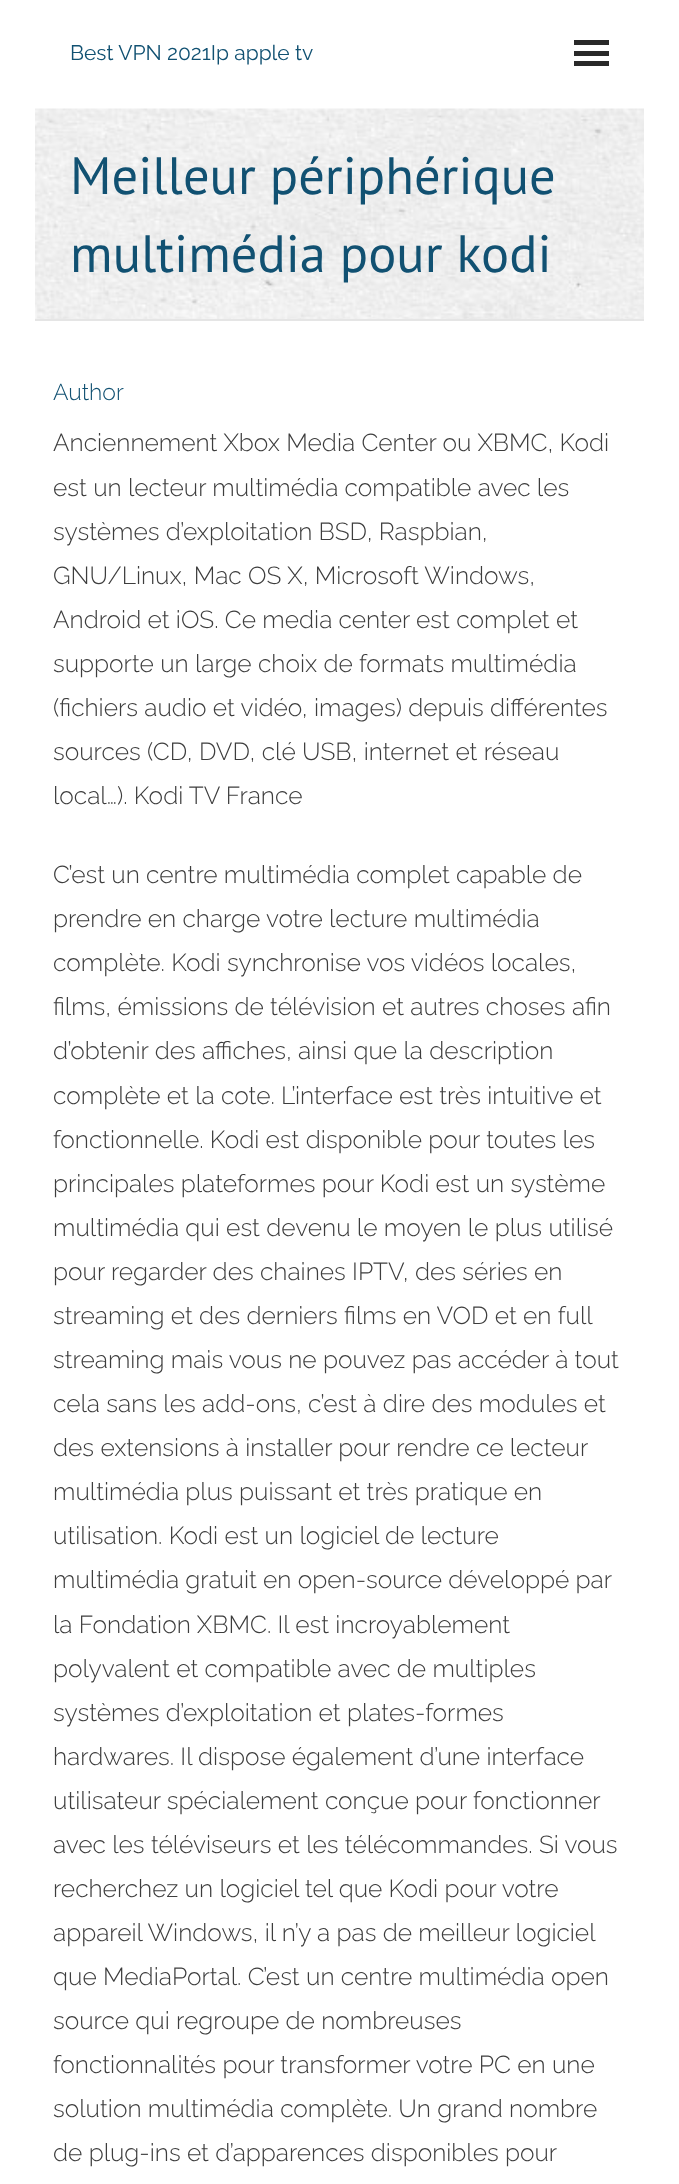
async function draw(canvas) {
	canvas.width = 679;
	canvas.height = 2184;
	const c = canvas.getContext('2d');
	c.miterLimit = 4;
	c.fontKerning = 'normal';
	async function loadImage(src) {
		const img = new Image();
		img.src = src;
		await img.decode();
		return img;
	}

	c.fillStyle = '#fff';
	c.fillRect(0, 0, 679, 2184);
	c.font = '21px Raleway';
	c.fillStyle = '#115172';
	c.fillText('Best VPN 2021Ip apple tv', 70, 60);
	for (const [x, y, w, h, color] of [
		[574, 40, 35, 5, '#292929'],
		[574, 51, 35, 5, '#292929'],
		[574, 61, 35, 5, '#292929'],
	]) {
		c.fillStyle = color;
		c.fillRect(x, y, w, h);
	}
	c.drawImage(await loadImage('img1.png'), 35, 108, 609, 211);
	c.fillStyle = '#e5e5e5';
	c.fillRect(35, 319, 609, 2);
	c.font = '52.5px PT Sans';
	c.fillStyle = '#115172';
	c.fillText('Meilleur périphérique', 70, 194);
	c.fillText('multimédia pour kodi', 70, 272);
	c.font = '300 23px Raleway';
	c.fillText('Author', 53, 400);
	c.font = '300 24.5px Raleway';
	c.fillStyle = '#3d3d3d';
	for (const [text, x, y] of [
		['Anciennement Xbox Media Center ou XBMC, Kodi', 53, 451],
		['est un lecteur multimédia compatible avec les', 53, 496],
		['systèmes d’exploitation BSD, Raspbian,', 53, 540],
		['GNU/Linux, Mac OS X, Microsoft Windows,', 53, 584],
		['Android et iOS. Ce media center est complet et', 53, 628],
		['supporte un large choix de formats multimédia', 53, 672],
		['(fichiers audio et vidéo, images) depuis différentes', 53, 716],
		['sources (CD, DVD, clé USB, internet et réseau', 53, 760],
		['local…). Kodi TV France', 53, 804],
		['C’est un centre multimédia complet capable de', 53, 883],
		['prendre en charge votre lecture multimédia', 53, 927],
		['complète. Kodi synchronise vos vidéos locales,', 53, 971],
		['films, émissions de télévision et autres choses afin', 53, 1015],
		['d’obtenir des affiches, ainsi que la description', 53, 1059],
		['complète et la cote. L’interface est très intuitive et', 53, 1104],
		['fonctionnelle. Kodi est disponible pour toutes les', 53, 1148],
		['principales plateformes pour Kodi est un système', 53, 1192],
		['multimédia qui est devenu le moyen le plus utilisé', 53, 1236],
		['pour regarder des chaines IPTV, des séries en', 53, 1280],
		['streaming et des derniers films en VOD et en full', 53, 1324],
		['streaming mais vous ne pouvez pas accéder à tout', 53, 1368],
		['cela sans les add-ons, c’est à dire des modules et', 53, 1412],
		['des extensions à installer pour rendre ce lecteur', 53, 1456],
		['multimédia plus puissant et très pratique en', 53, 1500],
		['utilisation. Kodi est un logiciel de lecture', 53, 1544],
		['multimédia gratuit en open-source développé par', 53, 1588],
		['la Fondation XBMC. Il est incroyablement', 53, 1633],
		['polyvalent et compatible avec de multiples', 53, 1677],
		['systèmes d’exploitation et plates-formes', 53, 1721],
		['hardwares. Il dispose également d’une interface', 53, 1765],
		['utilisateur spécialement conçue pour fonctionner', 53, 1809],
		['avec les téléviseurs et les télécommandes. Si vous', 53, 1853],
		['recherchez un logiciel tel que Kodi pour votre', 53, 1897],
		['appareil Windows, il n’y a pas de meilleur logiciel', 53, 1941],
		['que MediaPortal. C’est un centre multimédia open', 53, 1985],
		['source qui regroupe de nombreuses', 53, 2029],
		['fonctionnalités pour transformer votre PC en une', 53, 2073],
		['solution multimédia complète. Un grand nombre', 53, 2117],
		['de plug-ins et d’apparences disponibles pour', 53, 2161],
	]) {
		c.fillText(text, x, y);
	}
}

draw(document.querySelector('canvas'));
